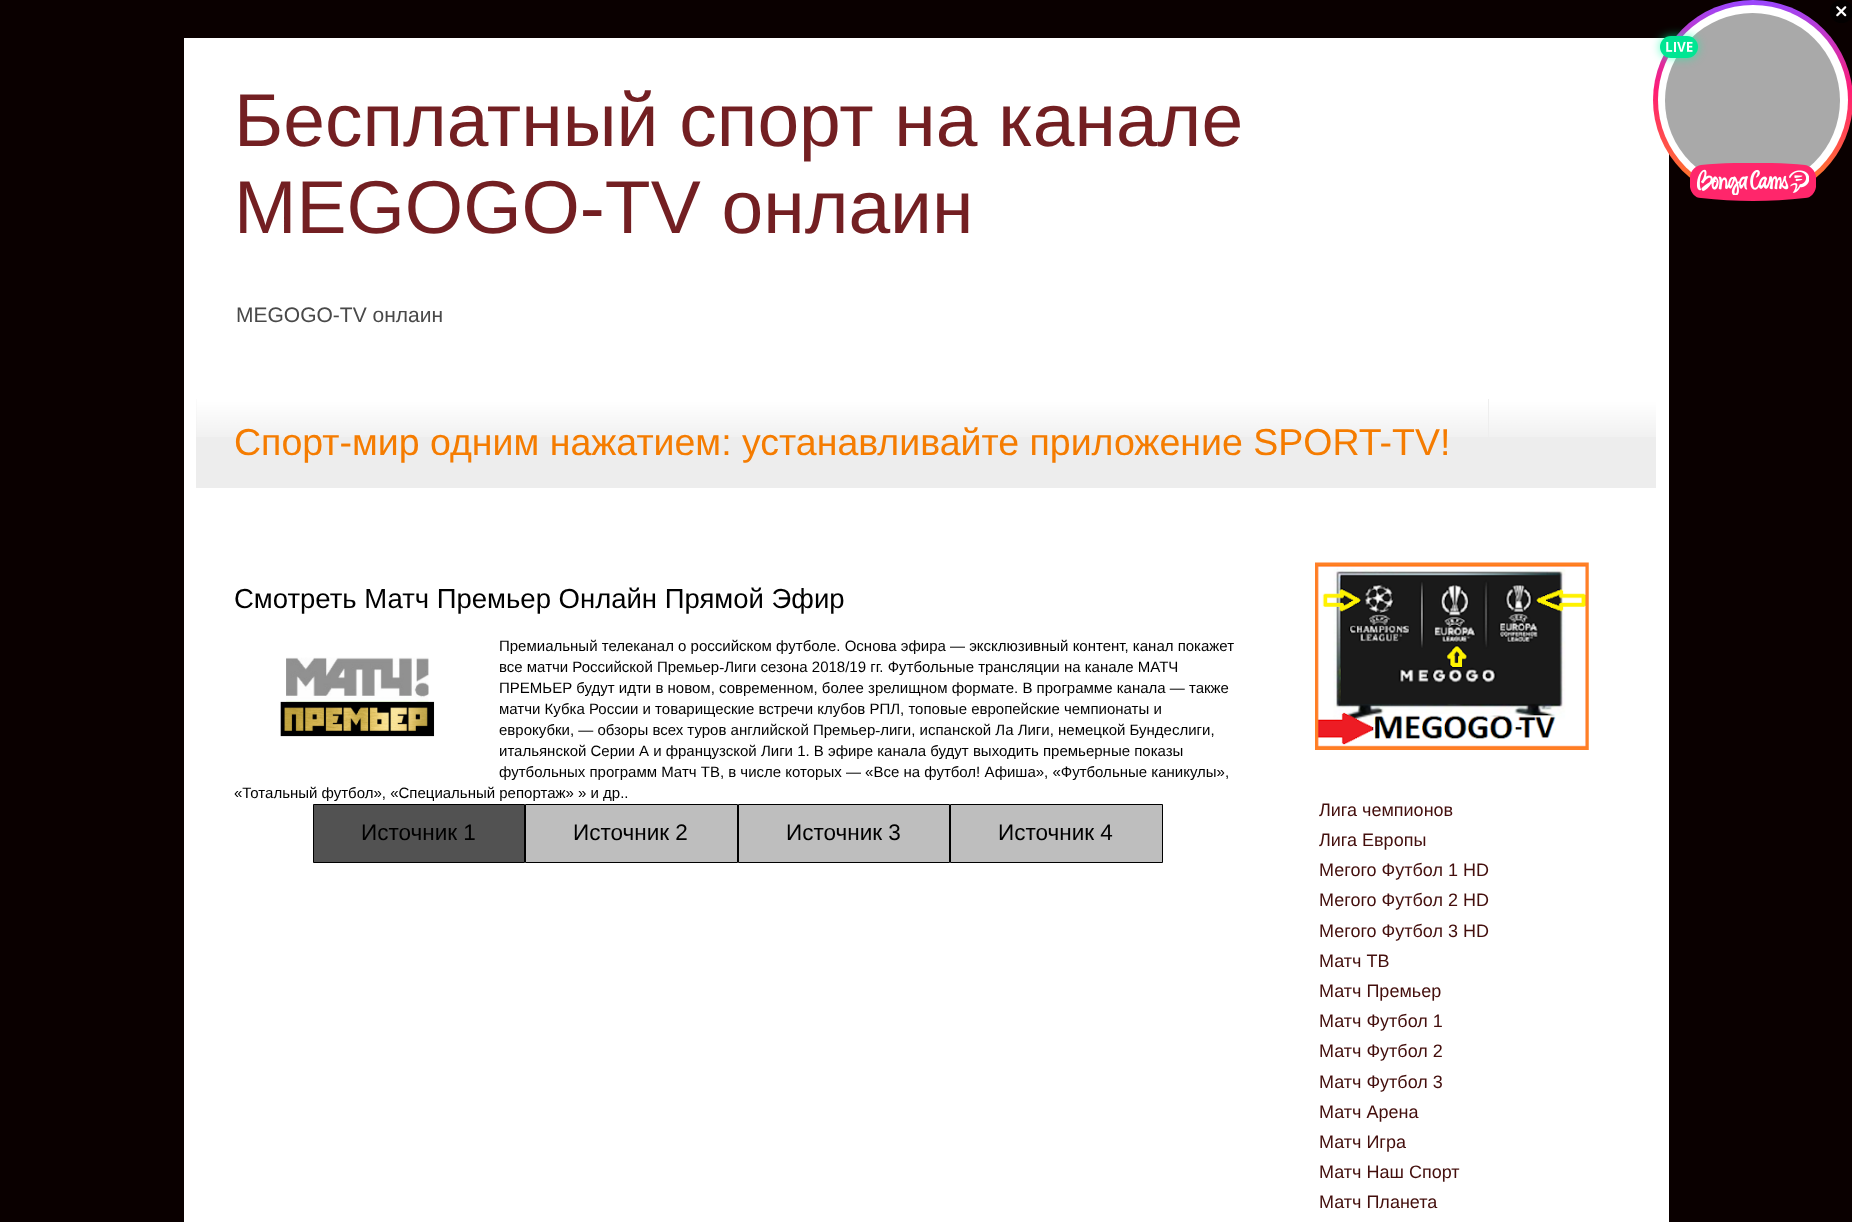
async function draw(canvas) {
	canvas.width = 1852;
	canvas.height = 1222;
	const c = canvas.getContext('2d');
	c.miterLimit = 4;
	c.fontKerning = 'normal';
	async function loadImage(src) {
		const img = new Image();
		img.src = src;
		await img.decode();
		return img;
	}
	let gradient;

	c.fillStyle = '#0a0000';
	c.fillRect(0, 0, 1852, 1222);
	c.fillStyle = '#fff';
	c.fillRect(184, 38, 1485, 1184);
	c.font = '75px Liberation Sans';
	c.fillStyle = '#731f22';
	c.fillText('Бесплатный спорт на канале', 234, 146);
	c.fillText('MEGOGO-TV онлаин', 234, 233);
	c.font = '21px Liberation Sans';
	c.fillStyle = '#494949';
	c.fillText('MEGOGO-TV онлаин', 236, 322);
	c.fillStyle = '#ededed';
	c.fillRect(196, 399, 1460, 89);
	c.drawImage(await loadImage('img1.png'), 196, 399, 1460, 38);
	c.fillStyle = '#eee';
	c.fillRect(1488, 399, 1, 38);
	c.font = '37.5px Liberation Sans';
	c.fillStyle = '#f57c00';
	c.fillText('Спорт-мир одним нажатием: устанавливайте приложение SPORT-TV!', 234, 455);
	c.font = '27.5px Liberation Sans';
	c.fillStyle = '#000';
	c.fillText('Смотреть Матч Премьер Онлайн Прямой Эфир', 234, 608);
	c.font = '15px Liberation Sans';
	c.fillText('Премиальный телеканал о российском футболе. Основа эфира — эксклюзивный контент, канал покажет', 499, 651);
	c.drawImage(await loadImage('img2.png'), 280, 657, 155, 80);
	for (const [text, x, y] of [
		['все матчи Российской Премьер‑Лиги сезона 2018/19 гг. Футбольные трансляции на канале МАТЧ', 499, 672],
		['ПРЕМЬЕР будут идти в новом, современном, более зрелищном формате. В программе канала — также', 499, 693],
		['матчи Кубка России и товарищеские встречи клубов РПЛ, топовые европейские чемпионаты и', 499, 714],
		['еврокубки, — обзоры всех туров английской Премьер‑лиги, испанской Ла Лиги, немецкой Бундеслиги,', 499, 735],
		['итальянской Серии А и французской Лиги 1. В эфире канала будут выходить премьерные показы', 499, 756],
		['футбольных программ Матч ТВ, в числе которых — «Все на футбол! Афиша», «Футбольные каникулы»,', 499, 777],
		['«Тотальный футбол», «Специальный репортаж» » и др..', 234, 798],
	]) {
		c.fillText(text, x, y);
	}
	c.fillStyle = '#525252';
	c.beginPath();
	c.rect(313.5, 804.5, 211, 58);
	c.fill();
	c.strokeStyle = '#000';
	c.stroke();
	c.font = '22.5px Liberation Sans';
	c.fillStyle = '#000';
	c.fillText('Источник 1', 361, 840);
	c.fillStyle = '#bebebe';
	c.beginPath();
	c.rect(525.5, 804.5, 212, 58);
	c.fill();
	c.stroke();
	c.fillStyle = '#000';
	c.fillText('Источник 2', 573, 840);
	c.fillStyle = '#bebebe';
	c.beginPath();
	c.rect(738.5, 804.5, 211, 58);
	c.fill();
	c.stroke();
	c.fillStyle = '#000';
	c.fillText('Источник 3', 786, 840);
	c.fillStyle = '#bebebe';
	c.beginPath();
	c.rect(950.5, 804.5, 212, 58);
	c.fill();
	c.stroke();
	c.fillStyle = '#000';
	c.fillText('Источник 4', 998, 840);
	c.drawImage(await loadImage('img3.png'), 1315, 562, 274, 188);
	c.font = '18px Liberation Sans';
	c.fillStyle = '#430e0c';
	for (const [text, x, y] of [
		['Лига чемпионов', 1319, 816],
		['Лига Европы', 1319, 846],
		['Мегого Футбол 1 HD', 1319, 876],
		['Мегого Футбол 2 HD', 1319, 906],
		['Мегого Футбол 3 HD', 1319, 937],
		['Матч ТВ', 1319, 967],
		['Матч Премьер', 1319, 997],
		['Матч Футбол 1', 1319, 1027],
		['Матч Футбол 2', 1319, 1057],
		['Матч Футбол 3', 1319, 1088],
		['Матч Арена', 1319, 1118],
		['Матч Игра', 1319, 1148],
		['Матч Наш Спорт', 1319, 1178],
		['Матч Планета', 1319, 1208],
	]) {
		c.fillText(text, x, y);
	}
	gradient = c.createLinearGradient(1753, 0, 1753, 200);
	gradient.addColorStop(0, '#9948ff');
	gradient.addColorStop(0.45, '#ff1c74');
	gradient.addColorStop(1, '#ff891c');
	c.fillStyle = gradient;
	c.beginPath();
	c.arc(1753, 100, 100, 0, 2 * Math.PI);
	c.fill();
	c.fillStyle = '#fff';
	c.beginPath();
	c.arc(1753, 100, 95, 0, 2 * Math.PI);
	c.fill();
	c.fillStyle = '#a9a9a9';
	c.beginPath();
	c.arc(1752.5, 100.5, 87.5, 0, 2 * Math.PI);
	c.fill();
	c.fillStyle = '#030000';
	c.beginPath();
	c.arc(1841.5, 11.5, 11.5, 0, 2 * Math.PI);
	c.fill();
	c.drawImage(await loadImage('img4.png'), 1836, 6, 11, 11);
	c.fillStyle = '#00ffa399';
	c.filter = 'blur(5px)';
	c.beginPath();
	c.roundRect(1660, 36, 38, 22, 11);
	c.fill();
	c.filter = 'none';
	c.fillStyle = '#00e693';
	c.beginPath();
	c.roundRect(1660, 36, 38, 22, 11);
	c.fill();
	c.drawImage(await loadImage('img5.png'), 1666, 41, 27, 11);
	c.save();
	c.beginPath();
	c.rect(1689, 163, 129, 38);
	c.clip();
	c.fillStyle = '#ff266b';
	c.beginPath();
	c.moveTo(1816, 176);
	c.bezierCurveTo(1815, 171, 1811, 166, 1805, 165);
	c.bezierCurveTo(1776, 162, 1730, 162, 1701, 165);
	c.bezierCurveTo(1695, 166, 1691, 171, 1690, 176);
	c.bezierCurveTo(1690, 182, 1690, 182, 1690, 187);
	c.bezierCurveTo(1691, 193, 1695, 198, 1701, 198);
	c.bezierCurveTo(1735, 202, 1771, 202, 1805, 198);
	c.bezierCurveTo(1811, 198, 1815, 193, 1816, 187);
	c.bezierCurveTo(1816, 182, 1816, 182, 1816, 176);
	c.closePath();
	c.fill();
	c.restore();
	c.drawImage(await loadImage('img6.png'), 1696, 169, 113, 26);
}

draw(document.querySelector('canvas'));
